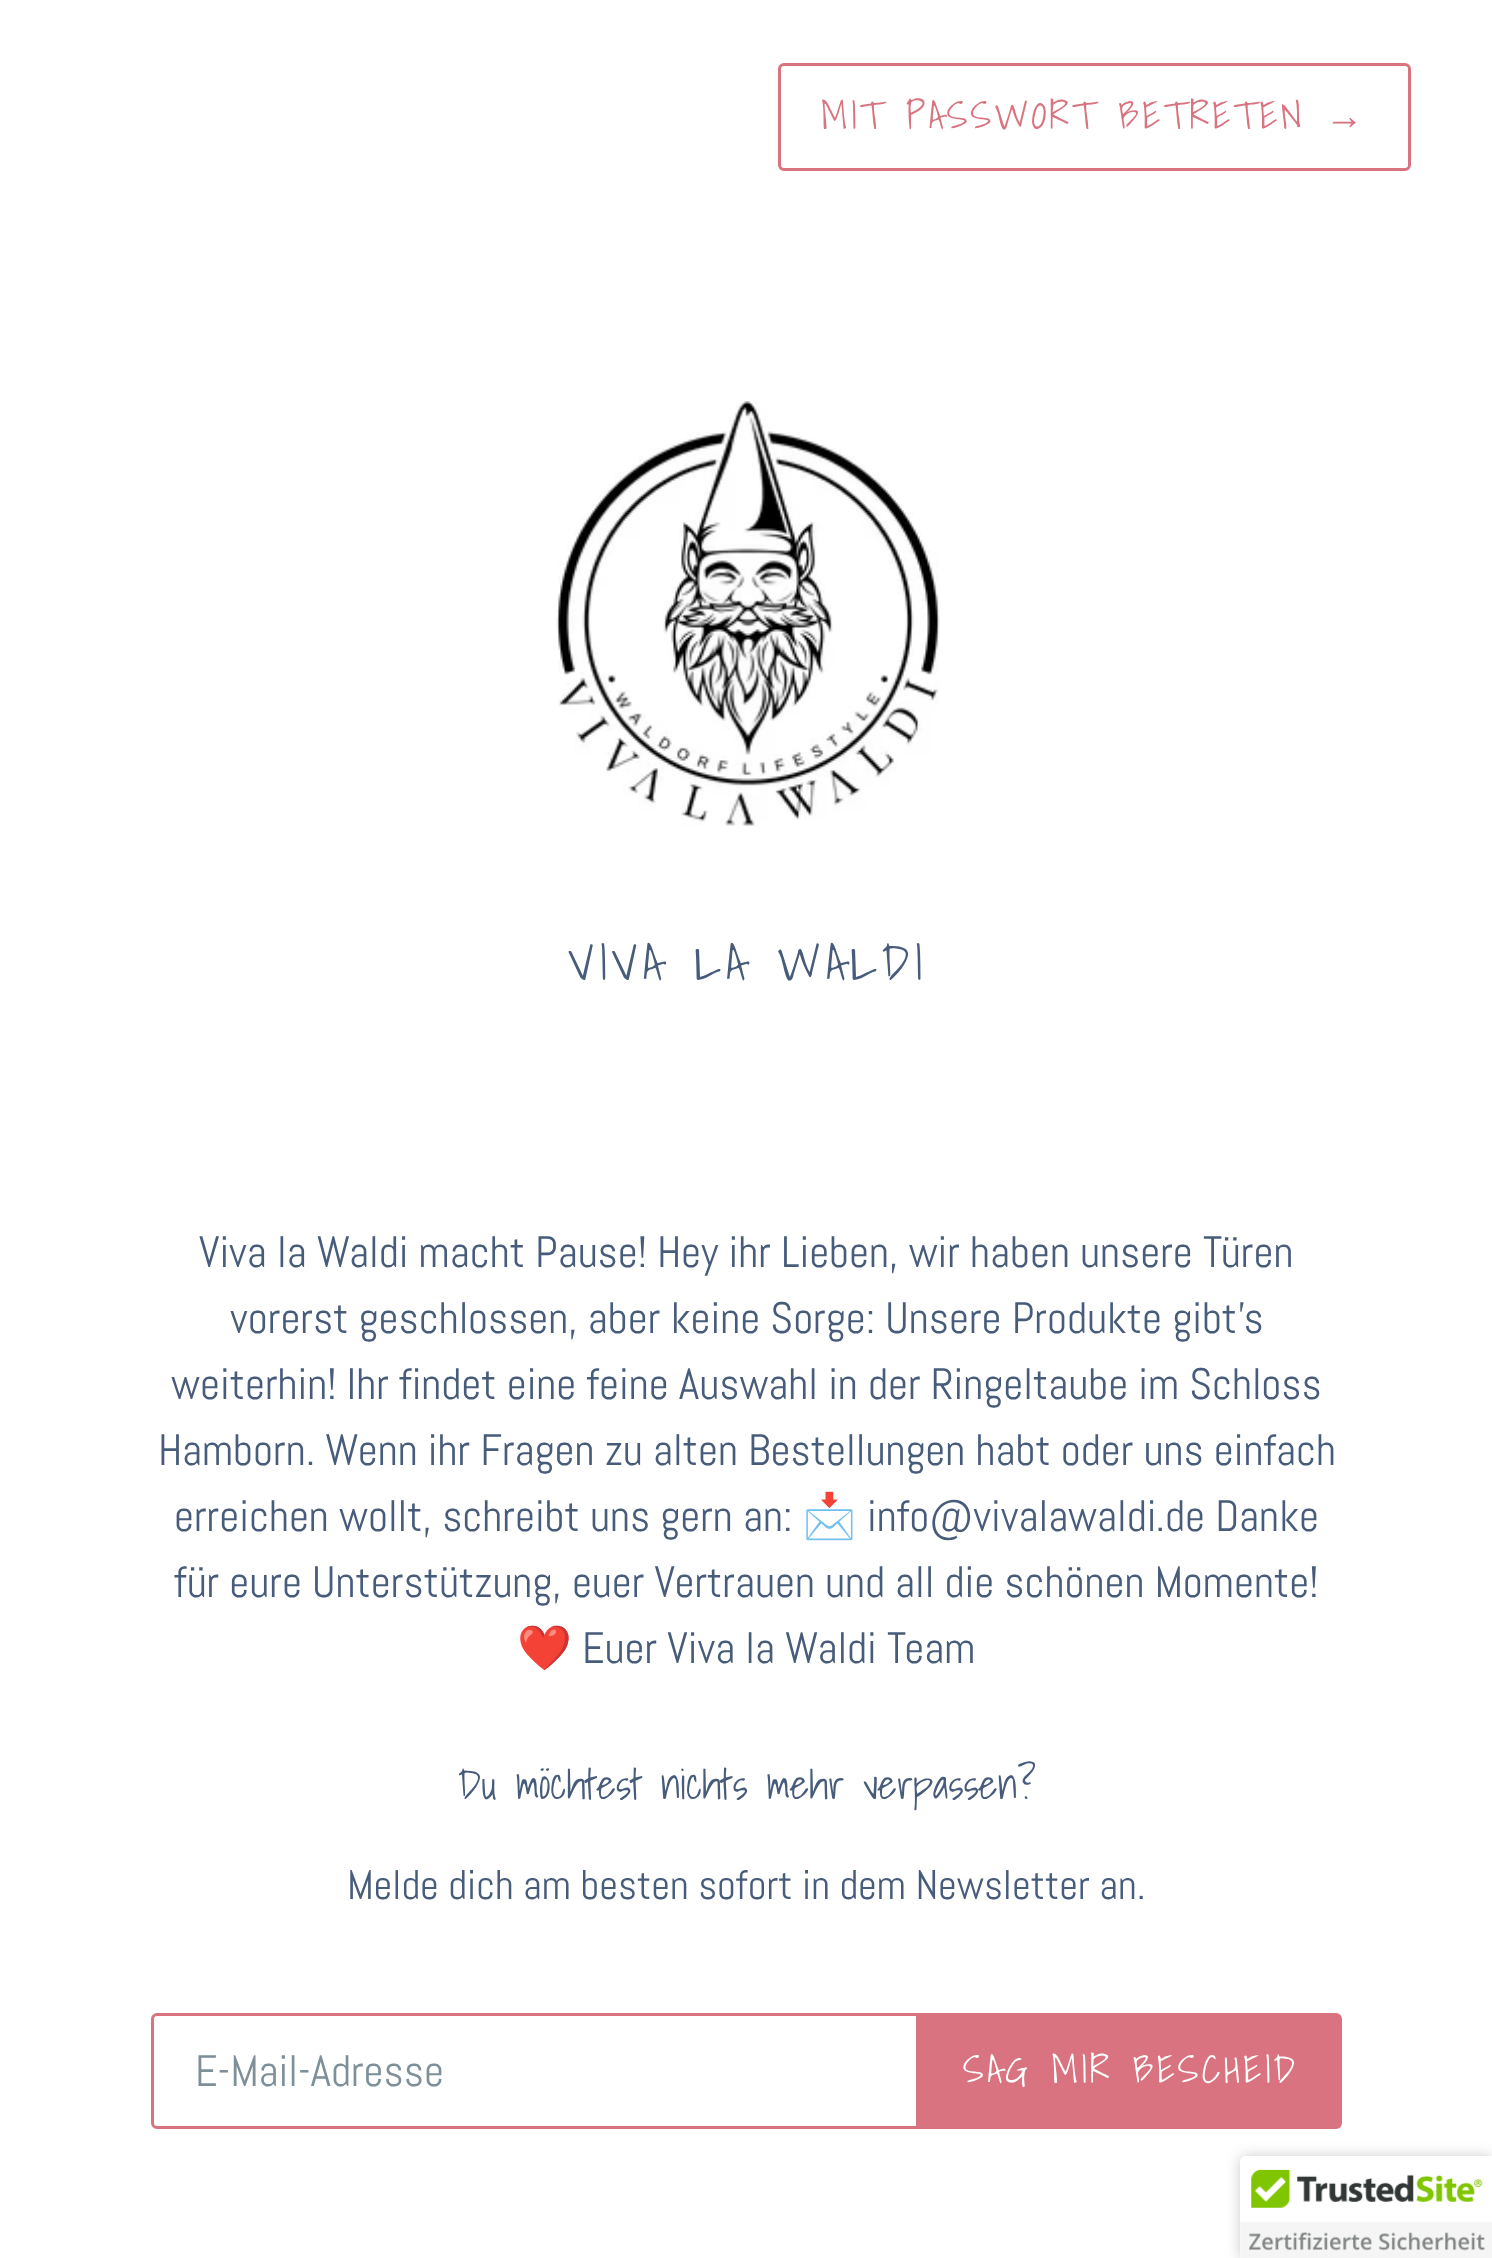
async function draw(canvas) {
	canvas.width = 1492;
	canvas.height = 2258;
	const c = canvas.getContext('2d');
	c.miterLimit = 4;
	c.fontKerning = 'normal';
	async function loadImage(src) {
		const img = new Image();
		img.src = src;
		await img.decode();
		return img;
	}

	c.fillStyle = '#fff';
	c.fillRect(0, 0, 1492, 2258);
	c.beginPath();
	c.roundRect(779.5, 64.5, 630, 105, 4.5);
	c.strokeStyle = '#d8737f';
	c.lineWidth = 3;
	c.stroke();
	c.letterSpacing = '3.1px';
	c.font = '38.5px Shadows Into Light';
	c.fillStyle = '#d8737f';
	c.fillText('MIT PASSWORT BETRETEN', 821, 129);
	c.font = '38.5px Liberation Sans';
	c.fillText('→', 1325, 129);
	c.drawImage(await loadImage('img1.png'), 556, 400, 384, 426);
	c.letterSpacing = '5px';
	c.font = '49.5px Shadows Into Light';
	c.fillStyle = '#475c7a';
	c.fillText('VIVA LA WALDI', 568, 980);
	c.letterSpacing = '0px';
	c.font = '44px Abel';
	for (const [text, x, y] of [
		['Viva la Waldi macht Pause! Hey ihr Lieben, wir haben unsere Türen', 199, 1267],
		['vorerst geschlossen, aber keine Sorge: Unsere Produkte gibt’s', 230, 1333],
		['weiterhin! Ihr findet eine feine Auswahl in der Ringeltaube im Schloss', 171, 1399],
		['Hamborn. Wenn ihr Fragen zu alten Bestellungen habt oder uns einfach', 158, 1465],
		['erreichen wollt, schreibt uns gern an:', 174, 1531],
	]) {
		c.fillText(text, x, y);
	}
	c.font = '44px Noto Color Emoji';
	c.fillText('📩', 802, 1531);
	c.font = '44px Abel';
	c.fillText('info@vivalawaldi.de Danke', 867, 1531);
	c.fillText('für eure Unterstützung, euer Vertrauen und all die schönen Momente!', 174, 1597);
	c.font = '44px Noto Color Emoji';
	c.fillText('❤️', 517, 1663);
	c.font = '44px Abel';
	c.fillText('Euer Viva la Waldi Team', 582, 1663);
	c.font = '41.25px Shadows Into Light';
	c.fillText('Du möchtest nichts mehr verpassen?', 458, 1799);
	c.font = '41.25px Abel';
	c.fillText('Melde dich am besten sofort in dem Newsletter an.', 347, 1899);
	c.beginPath();
	c.roundRect(152.5, 2014.5, 765, 113, [4.5, 0, 0, 4.5]);
	c.stroke();
	c.font = '44px Abel';
	c.fillStyle = '#7d8f99';
	c.fillText('E-Mail-Adresse', 195, 2086);
	c.fillStyle = '#d8737f';
	c.beginPath();
	c.roundRect(919, 2013, 423, 116, [0, 6, 6, 0]);
	c.fill();
	c.letterSpacing = '3.1px';
	c.font = '38.5px Shadows Into Light';
	c.fillStyle = '#fff';
	c.fillText('SAG MIR BESCHEID', 963, 2083);
	c.fillStyle = '#00000033';
	c.filter = 'blur(7px)';
	c.beginPath();
	c.roundRect(1240, 2156, 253, 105, 6);
	c.fill();
	c.filter = 'none';
	c.fillStyle = '#fff';
	c.beginPath();
	c.moveTo(1246, 2156);
	c.lineTo(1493, 2156);
	c.lineTo(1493, 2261);
	c.lineTo(1240, 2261);
	c.lineTo(1240, 2162);
	c.bezierCurveTo(1240, 2158.5, 1242.5, 2156, 1246, 2156);
	c.closePath();
	c.fill();
	c.drawImage(await loadImage('img2.png'), 1240, 2169, 252, 89);
}

draw(document.querySelector('canvas'));
